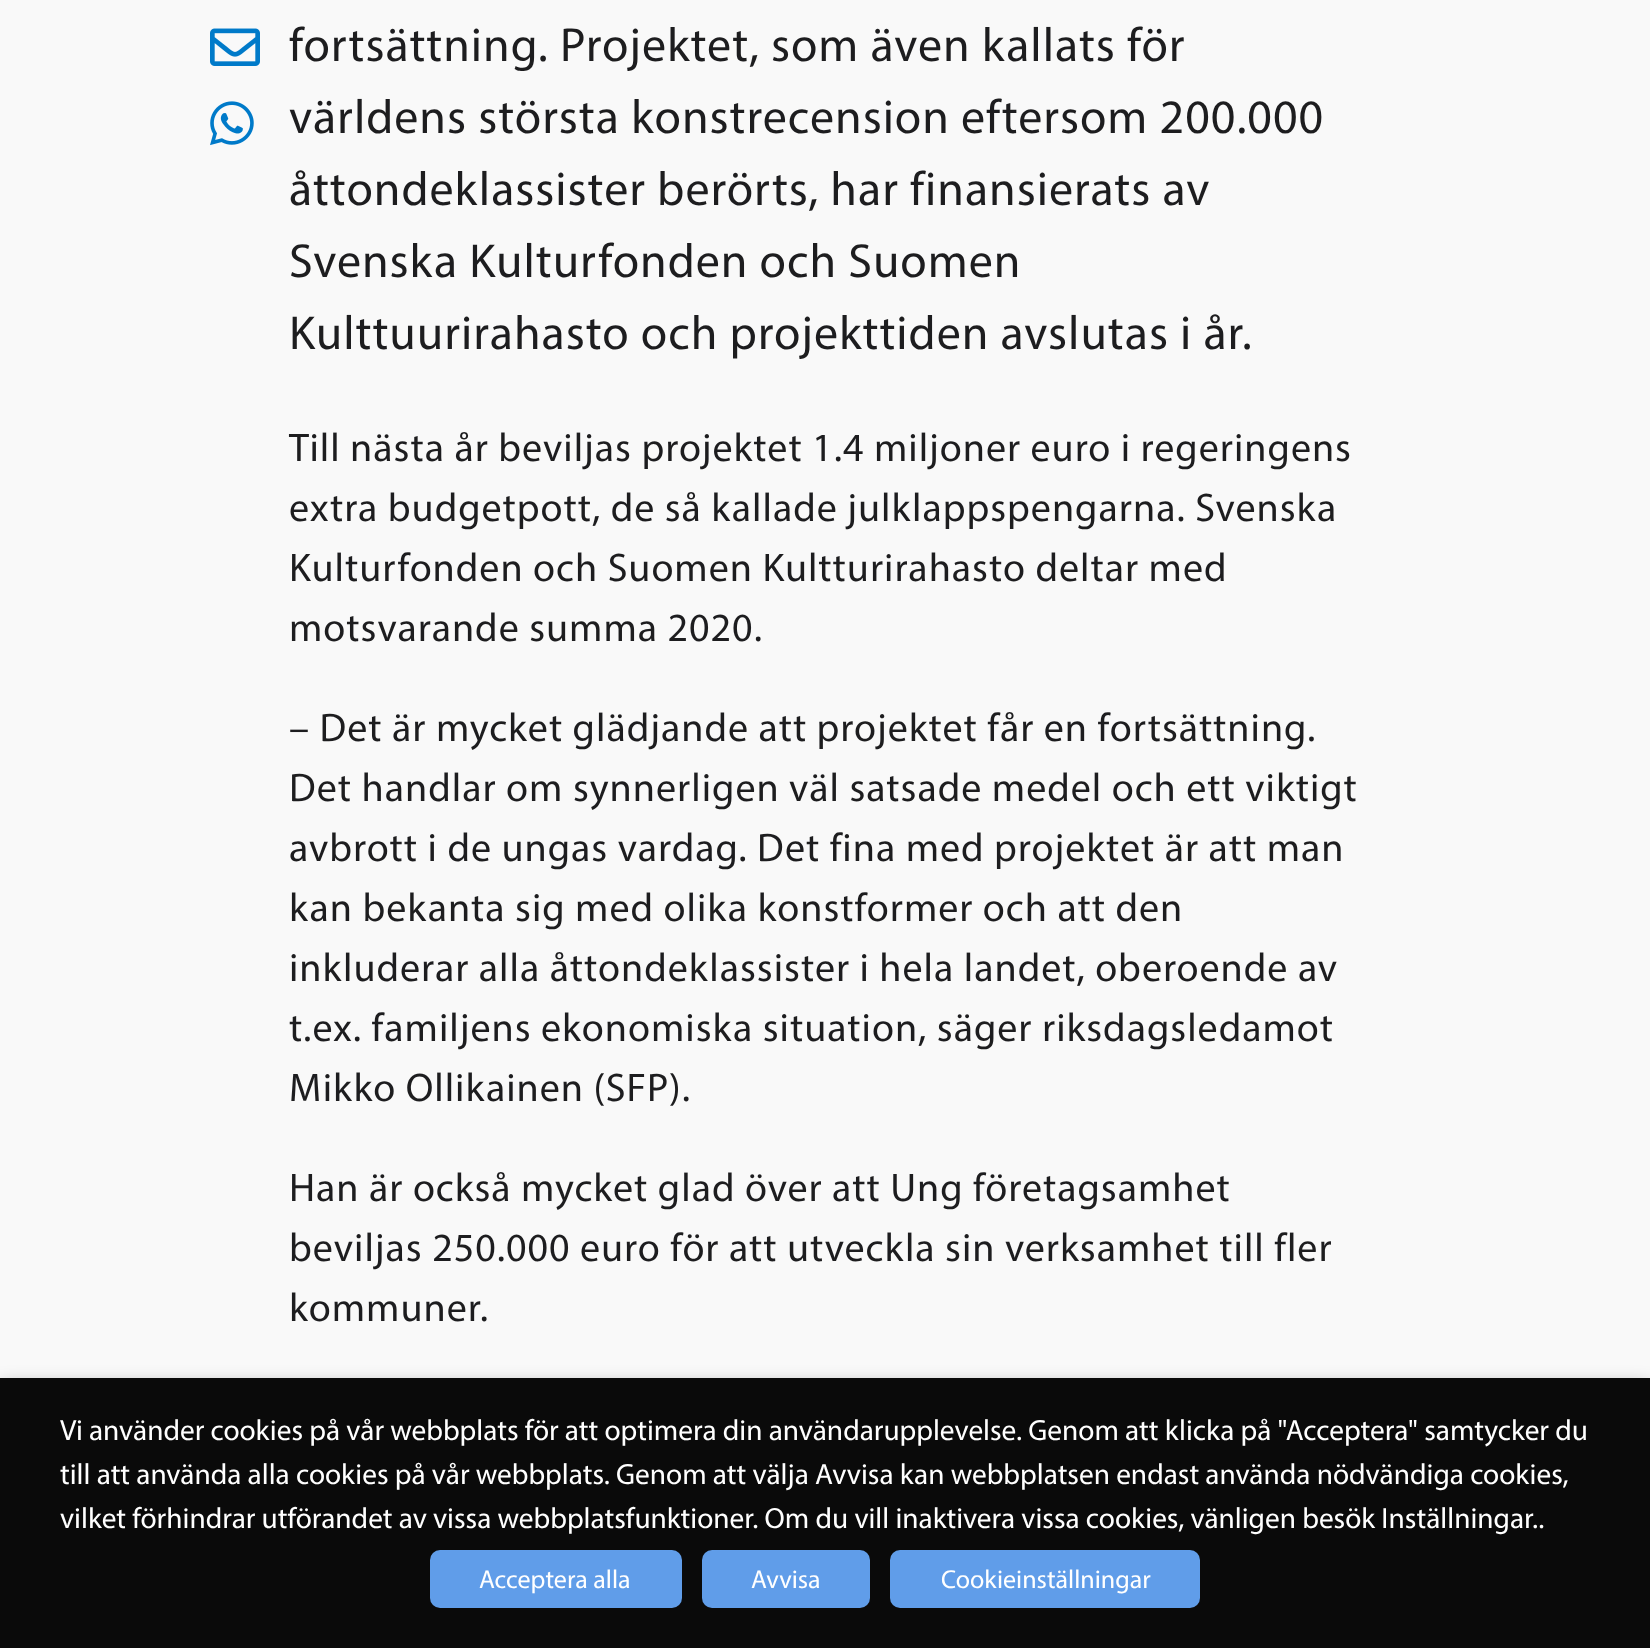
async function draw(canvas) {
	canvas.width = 1650;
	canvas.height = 1648;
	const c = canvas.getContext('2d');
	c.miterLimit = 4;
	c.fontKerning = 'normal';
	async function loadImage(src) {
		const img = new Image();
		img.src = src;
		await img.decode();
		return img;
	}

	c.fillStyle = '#f9f9f9';
	c.fillRect(0, 0, 1650, 1648);
	c.drawImage(await loadImage('img1.png'), 210, 28, 50, 38);
	c.drawImage(await loadImage('img2.png'), 210, 101, 44, 45);
	c.letterSpacing = '1px';
	c.font = '48px Myriad';
	c.fillStyle = '#1d1d1f';
	for (const [text, x, y] of [
		['fortsättning. Projektet, som även kallats för', 289, 61],
		['världens största konstrecension eftersom 200.000', 289, 133],
		['åttondeklassister berörts, har finansierats av', 289, 205],
		['Svenska Kulturfonden och Suomen', 289, 277],
		['Kulttuurirahasto och projekttiden avslutas i år.', 289, 349],
	]) {
		c.fillText(text, x, y);
	}
	c.font = '40px Myriad';
	for (const [text, x, y] of [
		['Till nästa år beviljas projektet 1.4 miljoner euro i regeringens', 289, 461],
		['extra budgetpott, de så kallade julklappspengarna. Svenska', 289, 521],
		['Kulturfonden och Suomen Kultturirahasto deltar med', 289, 581],
		['motsvarande summa 2020.', 289, 641],
		['– Det är mycket glädjande att projektet får en fortsättning.', 289, 741],
		['Det handlar om synnerligen väl satsade medel och ett viktigt', 289, 801],
		['avbrott i de ungas vardag. Det fina med projektet är att man', 289, 861],
		['kan bekanta sig med olika konstformer och att den', 289, 921],
		['inkluderar alla åttondeklassister i hela landet, oberoende av', 289, 981],
		['t.ex. familjens ekonomiska situation, säger riksdagsledamot', 289, 1041],
		['Mikko Ollikainen (SFP).', 289, 1101],
		['Han är också mycket glad över att Ung företagsamhet', 289, 1201],
		['beviljas 250.000 euro för att utveckla sin verksamhet till fler', 289, 1261],
		['kommuner.', 289, 1321],
	]) {
		c.fillText(text, x, y);
	}
	c.fillStyle = '#00000080';
	c.filter = 'blur(10px)';
	c.beginPath();
	c.rect(0, 1388, 1650, 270);
	c.fill();
	c.filter = 'none';
	c.fillStyle = '#0a0a0a';
	c.fillRect(0, 1378, 1650, 270);
	c.letterSpacing = '0px';
	c.font = '29.33px Myriad';
	c.fillStyle = '#fff';
	for (const [text, x, y] of [
		['Vi använder cookies på vår webbplats för att optimera din användarupplevelse. Genom att klicka på "Acceptera" samtycker du', 60, 1440],
		['till att använda alla cookies på vår webbplats. Genom att välja Avvisa kan webbplatsen endast använda nödvändiga cookies,', 60, 1484],
		['vilket förhindrar utförandet av vissa webbplatsfunktioner. Om du vill inaktivera vissa cookies, vänligen besök Inställningar..', 60, 1528],
	]) {
		c.fillText(text, x, y);
	}
	c.fillStyle = '#609de9';
	c.beginPath();
	c.roundRect(430, 1550, 252, 58, 10);
	c.fill();
	c.font = '26px Myriad';
	c.fillStyle = '#fff';
	c.fillText('Acceptera alla', 479, 1588);
	c.fillStyle = '#609de9';
	c.beginPath();
	c.roundRect(702, 1550, 168, 58, 10);
	c.fill();
	c.fillStyle = '#fff';
	c.fillText('Avvisa', 751, 1588);
	c.fillStyle = '#609de9';
	c.beginPath();
	c.roundRect(890, 1550, 310, 58, 10);
	c.fill();
	c.fillStyle = '#fff';
	c.fillText('Cookieinställningar', 941, 1588);
}

draw(document.querySelector('canvas'));
